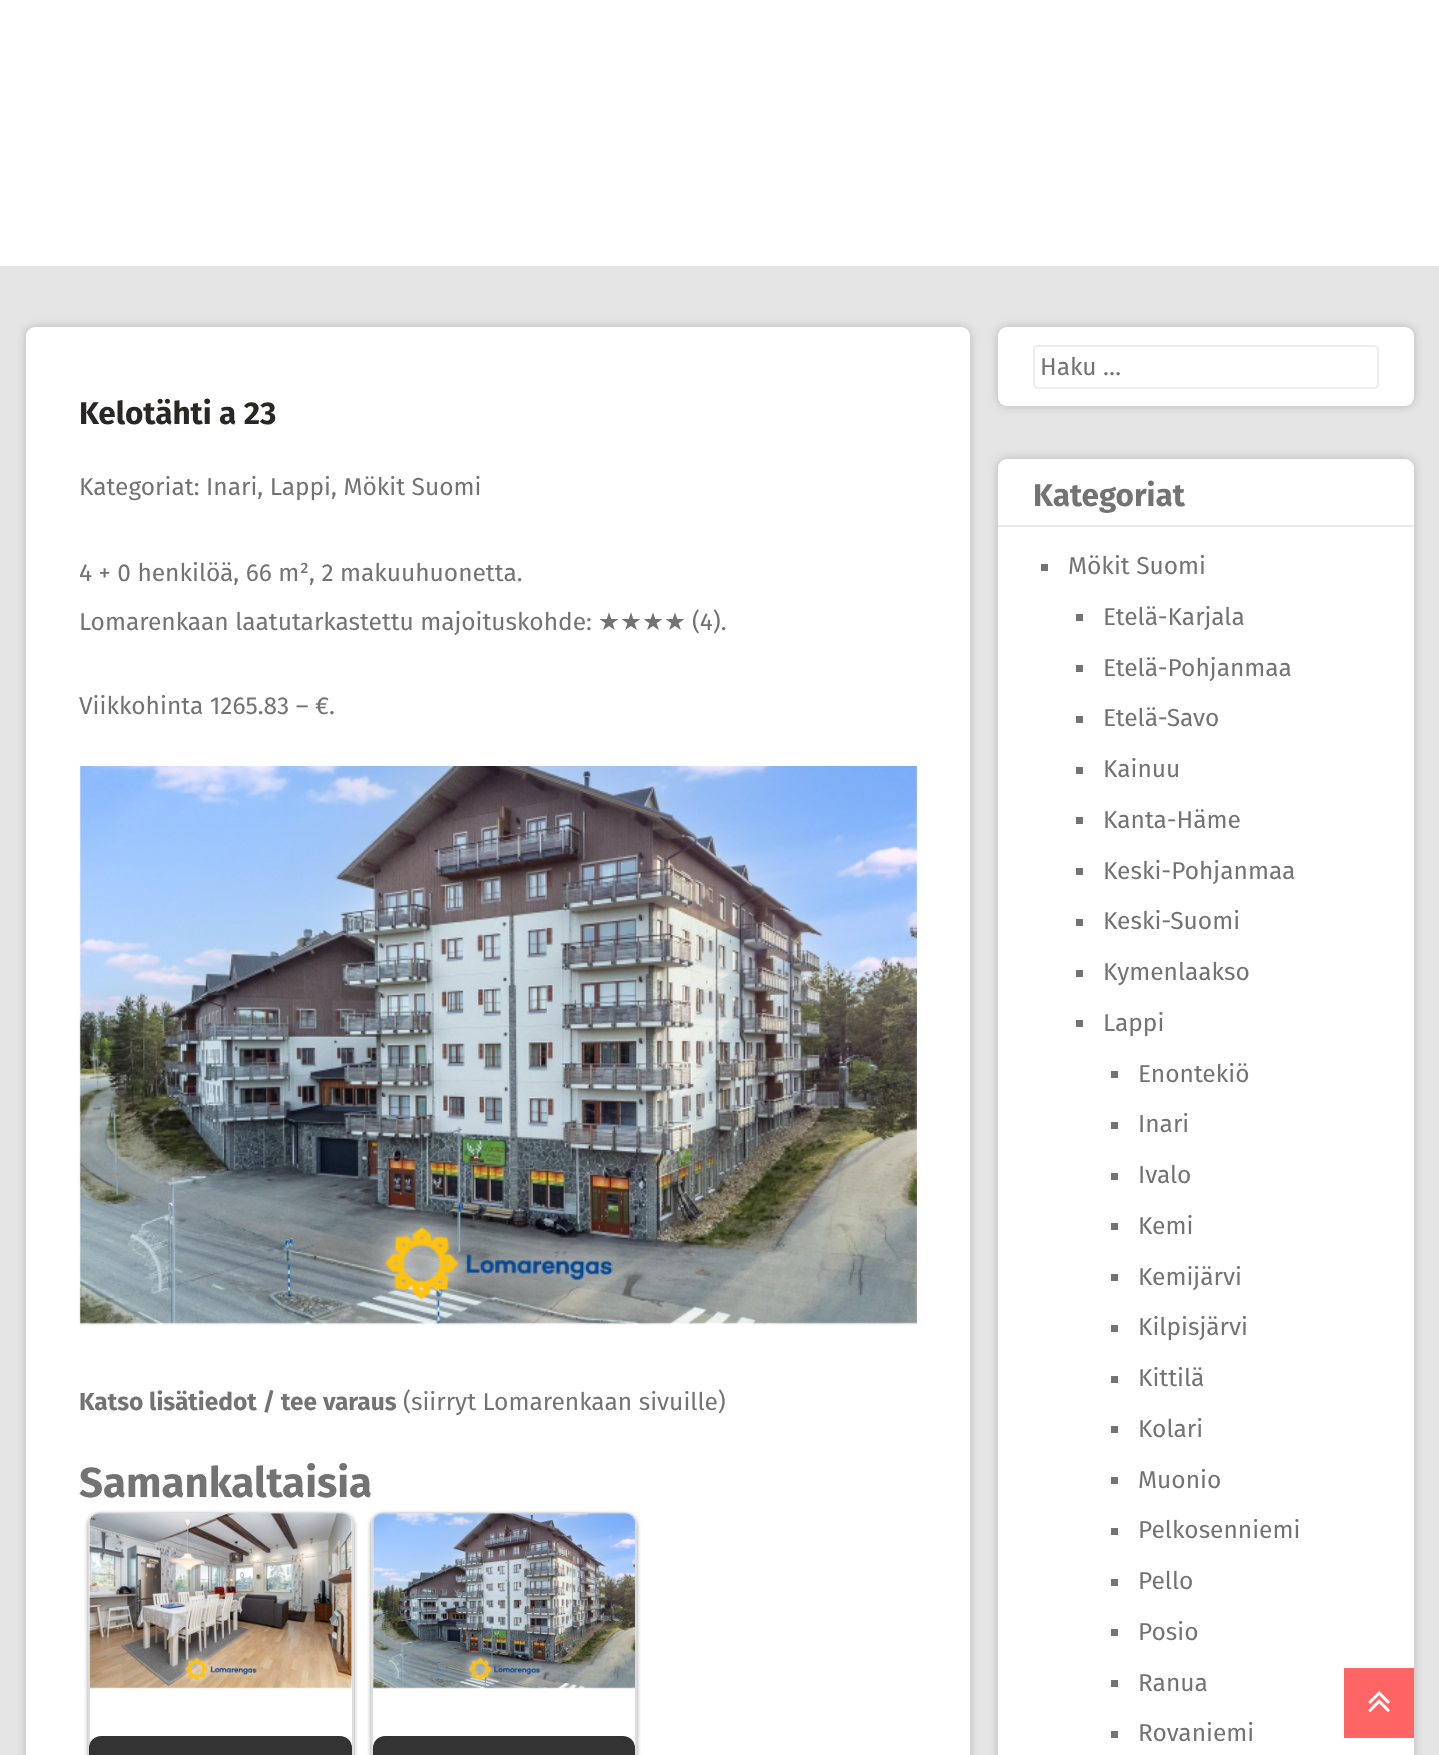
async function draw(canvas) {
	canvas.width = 1439;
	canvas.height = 1755;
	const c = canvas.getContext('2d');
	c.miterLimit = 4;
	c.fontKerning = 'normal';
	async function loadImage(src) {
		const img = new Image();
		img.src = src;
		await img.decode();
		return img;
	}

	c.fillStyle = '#e5e5e5';
	c.fillRect(0, 0, 1439, 1755);
	c.fillStyle = '#fff';
	c.fillRect(0, 0, 1439, 266);
	c.fillStyle = '#00000033';
	c.filter = 'blur(5px)';
	c.beginPath();
	c.roundRect(26, 327, 944, 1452, 9);
	c.fill();
	c.filter = 'none';
	c.fillStyle = '#fff';
	c.beginPath();
	c.roundRect(26, 327, 944, 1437, 9);
	c.fill();
	c.font = 'bold 31.5px Fira Sans';
	c.fillStyle = '#282724';
	c.fillText('Kelotähti a 23', 79, 424);
	c.font = '24.5px Fira Sans';
	c.fillStyle = '#737373';
	for (const [text, x, y] of [
		['Kategoriat: Inari, Lappi, Mökit Suomi', 79, 495],
		['4 + 0 henkilöä, 66 m², 2 makuuhuonetta.', 79, 581],
		['Lomarenkaan laatutarkastettu majoituskohde:', 79, 630],
	]) {
		c.fillText(text, x, y);
	}
	c.font = '24.5px DejaVu Sans';
	c.fillText('★★★★', 598, 630);
	c.font = '24.5px Fira Sans';
	c.fillText('(4).', 692, 630);
	c.fillText('Viikkohinta 1265.83 – €.', 79, 714);
	c.drawImage(await loadImage('img1.png'), 78, 766, 839, 559);
	c.font = 'bold 24.5px Fira Sans';
	c.fillText('Katso lisätiedot / tee varaus', 79, 1410);
	c.font = '24.5px Fira Sans';
	c.fillText('(siirryt Lomarenkaan sivuille)', 403, 1410);
	c.font = 'bold 42px Fira Sans';
	c.fillText('Samankaltaisia', 79, 1497);
	c.save();
	c.beginPath();
	c.moveTo(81, 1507);
	c.lineTo(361, 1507);
	c.lineTo(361, 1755);
	c.lineTo(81, 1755);
	c.closePath();
	c.moveTo(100, 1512);
	c.lineTo(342, 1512);
	c.bezierCurveTo(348.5, 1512, 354, 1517.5, 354, 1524);
	c.lineTo(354, 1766);
	c.bezierCurveTo(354, 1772.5, 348.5, 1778, 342, 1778);
	c.lineTo(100, 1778);
	c.bezierCurveTo(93.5, 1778, 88, 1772.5, 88, 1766);
	c.lineTo(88, 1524);
	c.bezierCurveTo(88, 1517.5, 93.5, 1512, 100, 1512);
	c.closePath();
	c.clip('evenodd');
	c.fillStyle = '#00000066';
	c.filter = 'blur(2px)';
	c.beginPath();
	c.roundRect(88, 1514, 266, 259, 12);
	c.fill();
	c.filter = 'none';
	c.restore();
	c.beginPath();
	c.roundRect(89, 1513, 264, 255, 11);
	c.strokeStyle = '#ddd';
	c.lineWidth = 2;
	c.stroke();
	c.drawImage(await loadImage('img2.png'), 89, 1513, 263, 176);
	c.fillStyle = '#000000cc';
	c.beginPath();
	c.roundRect(89, 1736, 263, 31, 12);
	c.fill();
	c.save();
	c.beginPath();
	c.moveTo(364, 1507);
	c.lineTo(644, 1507);
	c.lineTo(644, 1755);
	c.lineTo(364, 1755);
	c.closePath();
	c.moveTo(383, 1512);
	c.lineTo(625, 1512);
	c.bezierCurveTo(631.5, 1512, 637, 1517.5, 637, 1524);
	c.lineTo(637, 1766);
	c.bezierCurveTo(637, 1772.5, 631.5, 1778, 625, 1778);
	c.lineTo(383, 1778);
	c.bezierCurveTo(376.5, 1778, 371, 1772.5, 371, 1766);
	c.lineTo(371, 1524);
	c.bezierCurveTo(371, 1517.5, 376.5, 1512, 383, 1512);
	c.closePath();
	c.clip('evenodd');
	c.fillStyle = '#00000066';
	c.filter = 'blur(2px)';
	c.beginPath();
	c.roundRect(371, 1514, 266, 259, 12);
	c.fill();
	c.filter = 'none';
	c.restore();
	c.beginPath();
	c.roundRect(372, 1513, 264, 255, 11);
	c.stroke();
	c.drawImage(await loadImage('img3.png'), 372, 1513, 264, 176);
	c.fillStyle = '#333';
	c.beginPath();
	c.roundRect(373, 1736, 262, 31, 12);
	c.fill();
	c.fillStyle = '#00000033';
	c.filter = 'blur(5px)';
	c.beginPath();
	c.roundRect(998, 327, 416, 79, 9);
	c.fill();
	c.filter = 'none';
	c.fillStyle = '#fff';
	c.beginPath();
	c.roundRect(998, 327, 416, 79, 9);
	c.fill();
	c.beginPath();
	c.roundRect(1034, 346, 344, 42, 4);
	c.strokeStyle = '#ededed';
	c.stroke();
	c.font = '24.5px Fira Sans';
	c.fillStyle = '#737373';
	c.fillText('Haku …', 1040, 375);
	c.fillStyle = '#00000033';
	c.filter = 'blur(5px)';
	c.beginPath();
	c.roundRect(998, 459, 416, 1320, 9);
	c.fill();
	c.filter = 'none';
	c.fillStyle = '#fff';
	c.beginPath();
	c.roundRect(998, 459, 416, 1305, 9);
	c.fill();
	c.fillStyle = '#e9e9e9';
	c.fillRect(998, 525, 416, 2);
	c.font = 'bold 31.5px Fira Sans';
	c.fillStyle = '#737373';
	c.fillText('Kategoriat', 1033, 506);
	c.fillRect(1041, 564, 7, 7);
	c.font = '24.5px Fira Sans';
	c.fillText('Mökit Suomi', 1068, 574);
	c.fillRect(1076, 614, 7, 7);
	c.fillText('Etelä-Karjala', 1103, 625);
	c.fillRect(1076, 665, 7, 7);
	c.fillText('Etelä-Pohjanmaa', 1103, 676);
	c.fillRect(1076, 716, 7, 7);
	c.fillText('Etelä-Savo', 1103, 726);
	c.fillRect(1076, 767, 7, 7);
	c.fillText('Kainuu', 1103, 777);
	c.fillRect(1076, 817, 7, 7);
	c.fillText('Kanta-Häme', 1103, 828);
	c.fillRect(1076, 868, 7, 7);
	c.fillText('Keski-Pohjanmaa', 1103, 879);
	c.fillRect(1076, 919, 7, 7);
	c.fillText('Keski-Suomi', 1103, 929);
	c.fillRect(1076, 970, 7, 7);
	c.fillText('Kymenlaakso', 1103, 980);
	c.fillRect(1076, 1020, 7, 7);
	c.fillText('Lappi', 1103, 1031);
	c.fillRect(1111, 1071, 7, 7);
	c.fillText('Enontekiö', 1138, 1082);
	c.fillRect(1111, 1122, 7, 7);
	c.fillText('Inari', 1138, 1132);
	c.fillRect(1111, 1173, 7, 7);
	c.fillText('Ivalo', 1138, 1183);
	c.fillRect(1111, 1223, 7, 7);
	c.fillText('Kemi', 1138, 1234);
	c.fillRect(1111, 1274, 7, 7);
	c.fillText('Kemijärvi', 1138, 1285);
	c.fillRect(1111, 1325, 7, 7);
	c.fillText('Kilpisjärvi', 1138, 1335);
	c.fillRect(1111, 1376, 7, 7);
	c.fillText('Kittilä', 1138, 1386);
	c.fillRect(1111, 1426, 7, 7);
	c.fillText('Kolari', 1138, 1437);
	c.fillRect(1111, 1477, 7, 7);
	c.fillText('Muonio', 1138, 1488);
	c.fillRect(1111, 1528, 7, 7);
	c.fillText('Pelkosenniemi', 1138, 1538);
	c.fillRect(1111, 1579, 7, 7);
	c.fillText('Pello', 1138, 1589);
	c.fillRect(1111, 1629, 7, 7);
	c.fillText('Posio', 1138, 1640);
	c.fillRect(1111, 1680, 7, 7);
	c.fillText('Ranua', 1138, 1691);
	c.fillRect(1111, 1731, 7, 7);
	c.fillText('Rovaniemi', 1138, 1741);
	c.fillStyle = '#ff6565';
	c.fillRect(1344, 1668, 70, 70);
	c.drawImage(await loadImage('img4.png'), 1368, 1691, 22, 21);
}

draw(document.querySelector('canvas'));
